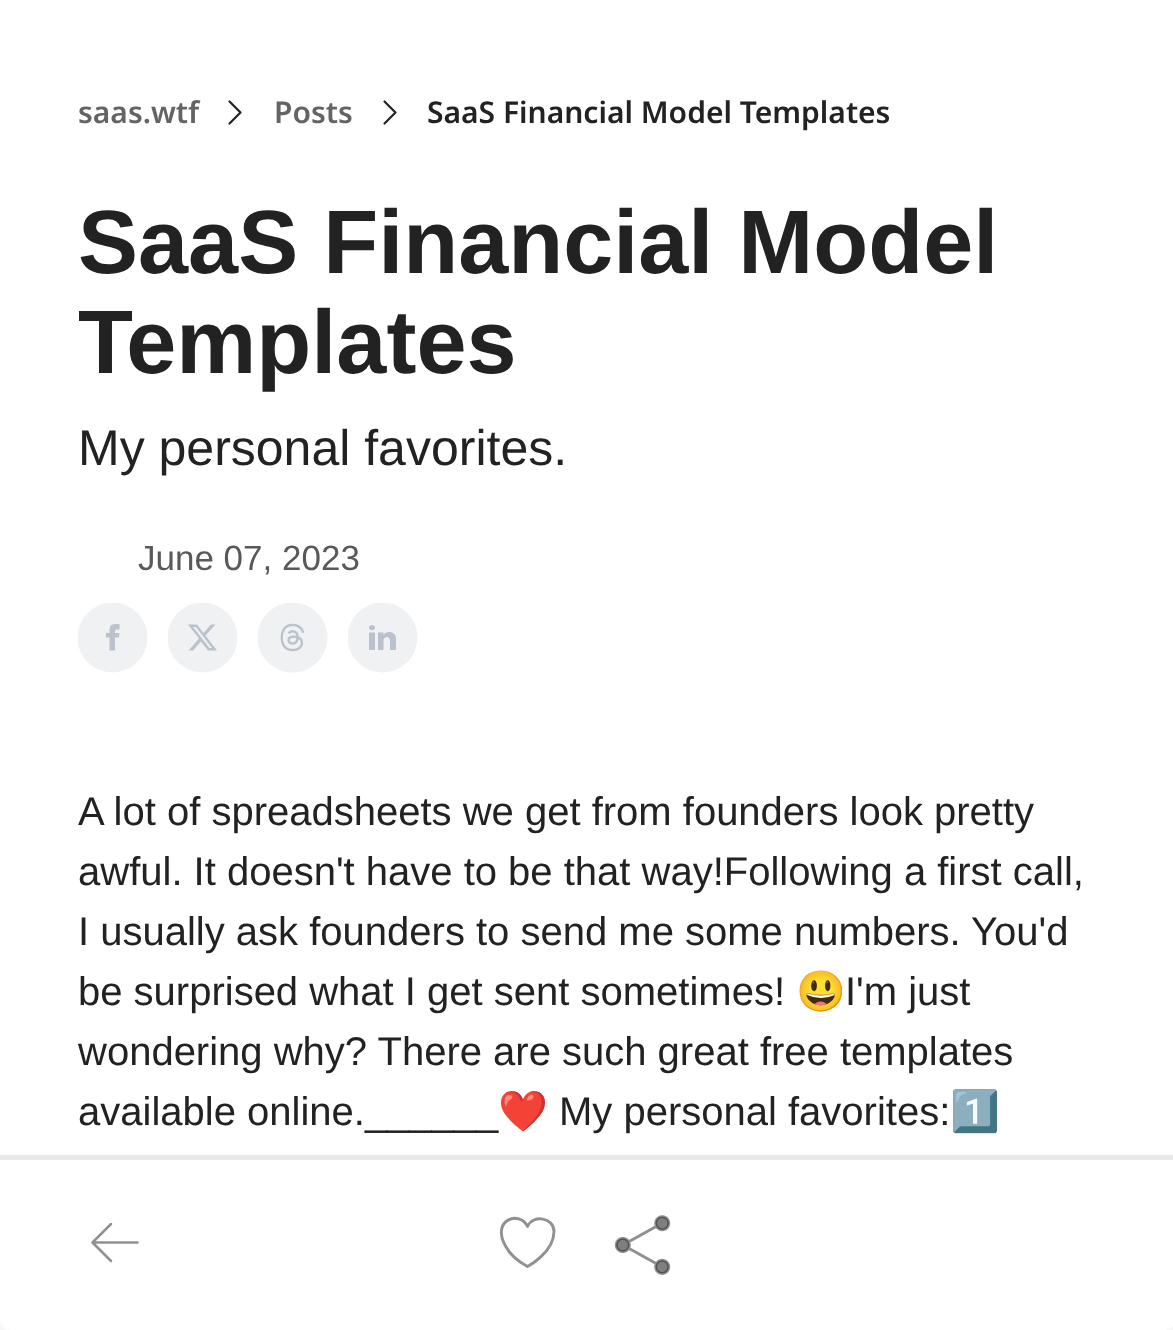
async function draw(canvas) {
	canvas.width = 1173;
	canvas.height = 1330;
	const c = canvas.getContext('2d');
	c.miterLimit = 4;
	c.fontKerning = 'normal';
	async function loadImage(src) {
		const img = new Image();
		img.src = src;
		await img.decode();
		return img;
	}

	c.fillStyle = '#fff';
	c.fillRect(0, 0, 1173, 1330);
	c.font = '600 30px Noto Sans';
	c.fillStyle = '#646464';
	c.fillText('saas.wtf', 78, 123);
	c.beginPath();
	c.moveTo(229.5, 101.5);
	c.lineTo(240.5, 112.5);
	c.lineTo(229.5, 123.5);
	c.strokeStyle = '#222';
	c.lineWidth = 2.2;
	c.lineCap = 'round';
	c.lineJoin = 'round';
	c.stroke();
	c.fillText('Posts', 274, 123);
	c.beginPath();
	c.moveTo(384.5, 101.5);
	c.lineTo(395.5, 112.5);
	c.lineTo(384.5, 123.5);
	c.stroke();
	c.fillStyle = '#222';
	c.fillText('SaaS Financial Model Templates', 427, 123);
	c.font = 'bold 90px Liberation Sans';
	c.fillText('SaaS Financial Model', 78, 273);
	c.fillText('Templates', 78, 373);
	c.font = '50px Liberation Sans';
	c.fillText('My personal favorites.', 78, 465);
	c.font = '35px Liberation Sans';
	c.fillStyle = '#595959';
	c.fillText('June 07, 2023', 138, 570);
	c.save();
	c.beginPath();
	c.rect(78, 603, 70, 70);
	c.clip();
	c.fillStyle = '#f0f1f3';
	c.beginPath();
	c.arc(112.5, 637.5, 35, 0, 2 * Math.PI);
	c.fill();
	c.restore();
	c.fillStyle = '#bac2ce';
	c.beginPath();
	c.moveTo(109.5, 633);
	c.lineTo(106, 633);
	c.lineTo(106, 637.5);
	c.lineTo(109.5, 637.5);
	c.lineTo(109.5, 650.5);
	c.lineTo(115, 650.5);
	c.lineTo(115, 637.5);
	c.lineTo(119, 637.5);
	c.lineTo(119.5, 633);
	c.lineTo(115, 633);
	c.bezierCurveTo(115, 629, 115, 629.5, 119.5, 629.5);
	c.lineTo(119.5, 624);
	c.bezierCurveTo(110.5, 624, 109.5, 624, 109.5, 633);
	c.closePath();
	c.fill();
	c.save();
	c.beginPath();
	c.rect(168, 603, 70, 70);
	c.clip();
	c.fillStyle = '#f0f1f3';
	c.beginPath();
	c.arc(202.5, 637.5, 35, 0, 2 * Math.PI);
	c.fill();
	c.restore();
	c.beginPath();
	c.moveTo(211, 624.5);
	c.lineTo(215.5, 624.5);
	c.lineTo(205.5, 635.5);
	c.lineTo(217, 650.5);
	c.lineTo(208, 650.5);
	c.lineTo(201, 641.5);
	c.lineTo(193, 650.5);
	c.lineTo(188.5, 650.5);
	c.lineTo(199, 638.5);
	c.lineTo(188, 624.5);
	c.lineTo(197, 624.5);
	c.lineTo(203.5, 633);
	c.closePath();
	c.moveTo(209.5, 648);
	c.lineTo(212, 648);
	c.lineTo(196, 627);
	c.lineTo(193, 627);
	c.closePath();
	c.fill();
	c.drawImage(await loadImage('img1.png'), 258, 603, 70, 70);
	c.save();
	c.beginPath();
	c.rect(348, 603, 70, 70);
	c.clip();
	c.fillStyle = '#f0f1f3';
	c.beginPath();
	c.arc(382.5, 637.5, 35, 0, 2 * Math.PI);
	c.fill();
	c.restore();
	c.beginPath();
	c.moveTo(375, 627.5);
	c.bezierCurveTo(375, 631, 369, 631, 369, 627.5);
	c.bezierCurveTo(369, 624, 375, 624, 375, 627.5);
	c.closePath();
	c.moveTo(375, 632.5);
	c.lineTo(369, 632.5);
	c.lineTo(369, 650);
	c.lineTo(375, 650);
	c.closePath();
	c.moveTo(383.5, 632.5);
	c.lineTo(378, 632.5);
	c.lineTo(378, 650);
	c.lineTo(383.5, 650);
	c.lineTo(383.5, 641);
	c.bezierCurveTo(383.5, 635.5, 390, 635.5, 390, 641);
	c.lineTo(390, 650);
	c.lineTo(396, 650);
	c.lineTo(396, 639);
	c.bezierCurveTo(396, 630.5, 386, 630.5, 383.5, 635);
	c.closePath();
	c.fill();
	c.font = '40px Liberation Sans';
	c.fillStyle = '#222';
	for (const [text, x, y] of [
		['A lot of spreadsheets we get from founders look pretty', 78, 825],
		['awful. It doesn\'t have to be that way!Following a first call,', 78, 885],
		['I usually ask founders to send me some numbers. You\'d', 78, 945],
		['be surprised what I get sent sometimes!', 78, 1005],
	]) {
		c.fillText(text, x, y);
	}
	c.font = '40px Noto Color Emoji';
	c.fillText('😃', 796, 1005);
	c.font = '40px Liberation Sans';
	for (const [text, x, y] of [
		['I\'m just', 845, 1005],
		['wondering why? There are such great free templates', 78, 1065],
		['available online.______', 78, 1125],
	]) {
		c.fillText(text, x, y);
	}
	c.font = '40px Noto Color Emoji';
	c.fillText('❤️', 498, 1125);
	c.font = '40px Liberation Sans';
	c.fillText('My personal favorites:', 559, 1125);
	c.font = '40px Noto Color Emoji';
	c.fillText('1️⃣', 950, 1125);
	c.fillStyle = '#0000001a';
	c.filter = 'blur(31px)';
	c.beginPath();
	c.rect(13, 1218, 1150, 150);
	c.fill();
	c.filter = 'none';
	c.fillStyle = '#fff';
	c.beginPath();
	c.roundRect(0, 1155, 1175, 175, 10);
	c.fill();
	c.fillStyle = '#e9e9e9';
	c.fillRect(0, 1155, 1173, 5);
	c.beginPath();
	c.moveTo(111, 1261);
	c.lineTo(92.5, 1242.5);
	c.moveTo(92.5, 1242.5);
	c.lineTo(111, 1224);
	c.moveTo(92.5, 1242.5);
	c.lineTo(137.5, 1242.5);
	c.strokeStyle = '#919191';
	c.lineWidth = 2.5;
	c.stroke();
	c.beginPath();
	c.moveTo(554, 1231.5);
	c.bezierCurveTo(554, 1217.5, 533, 1214, 527.5, 1226.5);
	c.bezierCurveTo(520, 1210, 490.5, 1219.5, 505.5, 1246);
	c.bezierCurveTo(510, 1254.5, 519, 1262, 527.5, 1266.5);
	c.bezierCurveTo(527.5, 1266.5, 554, 1252.5, 554, 1231.5);
	c.closePath();
	c.lineWidth = 2.9;
	c.stroke();
	c.drawImage(await loadImage('img2.png'), 614, 1215, 57, 60);
}

draw(document.querySelector('canvas'));
